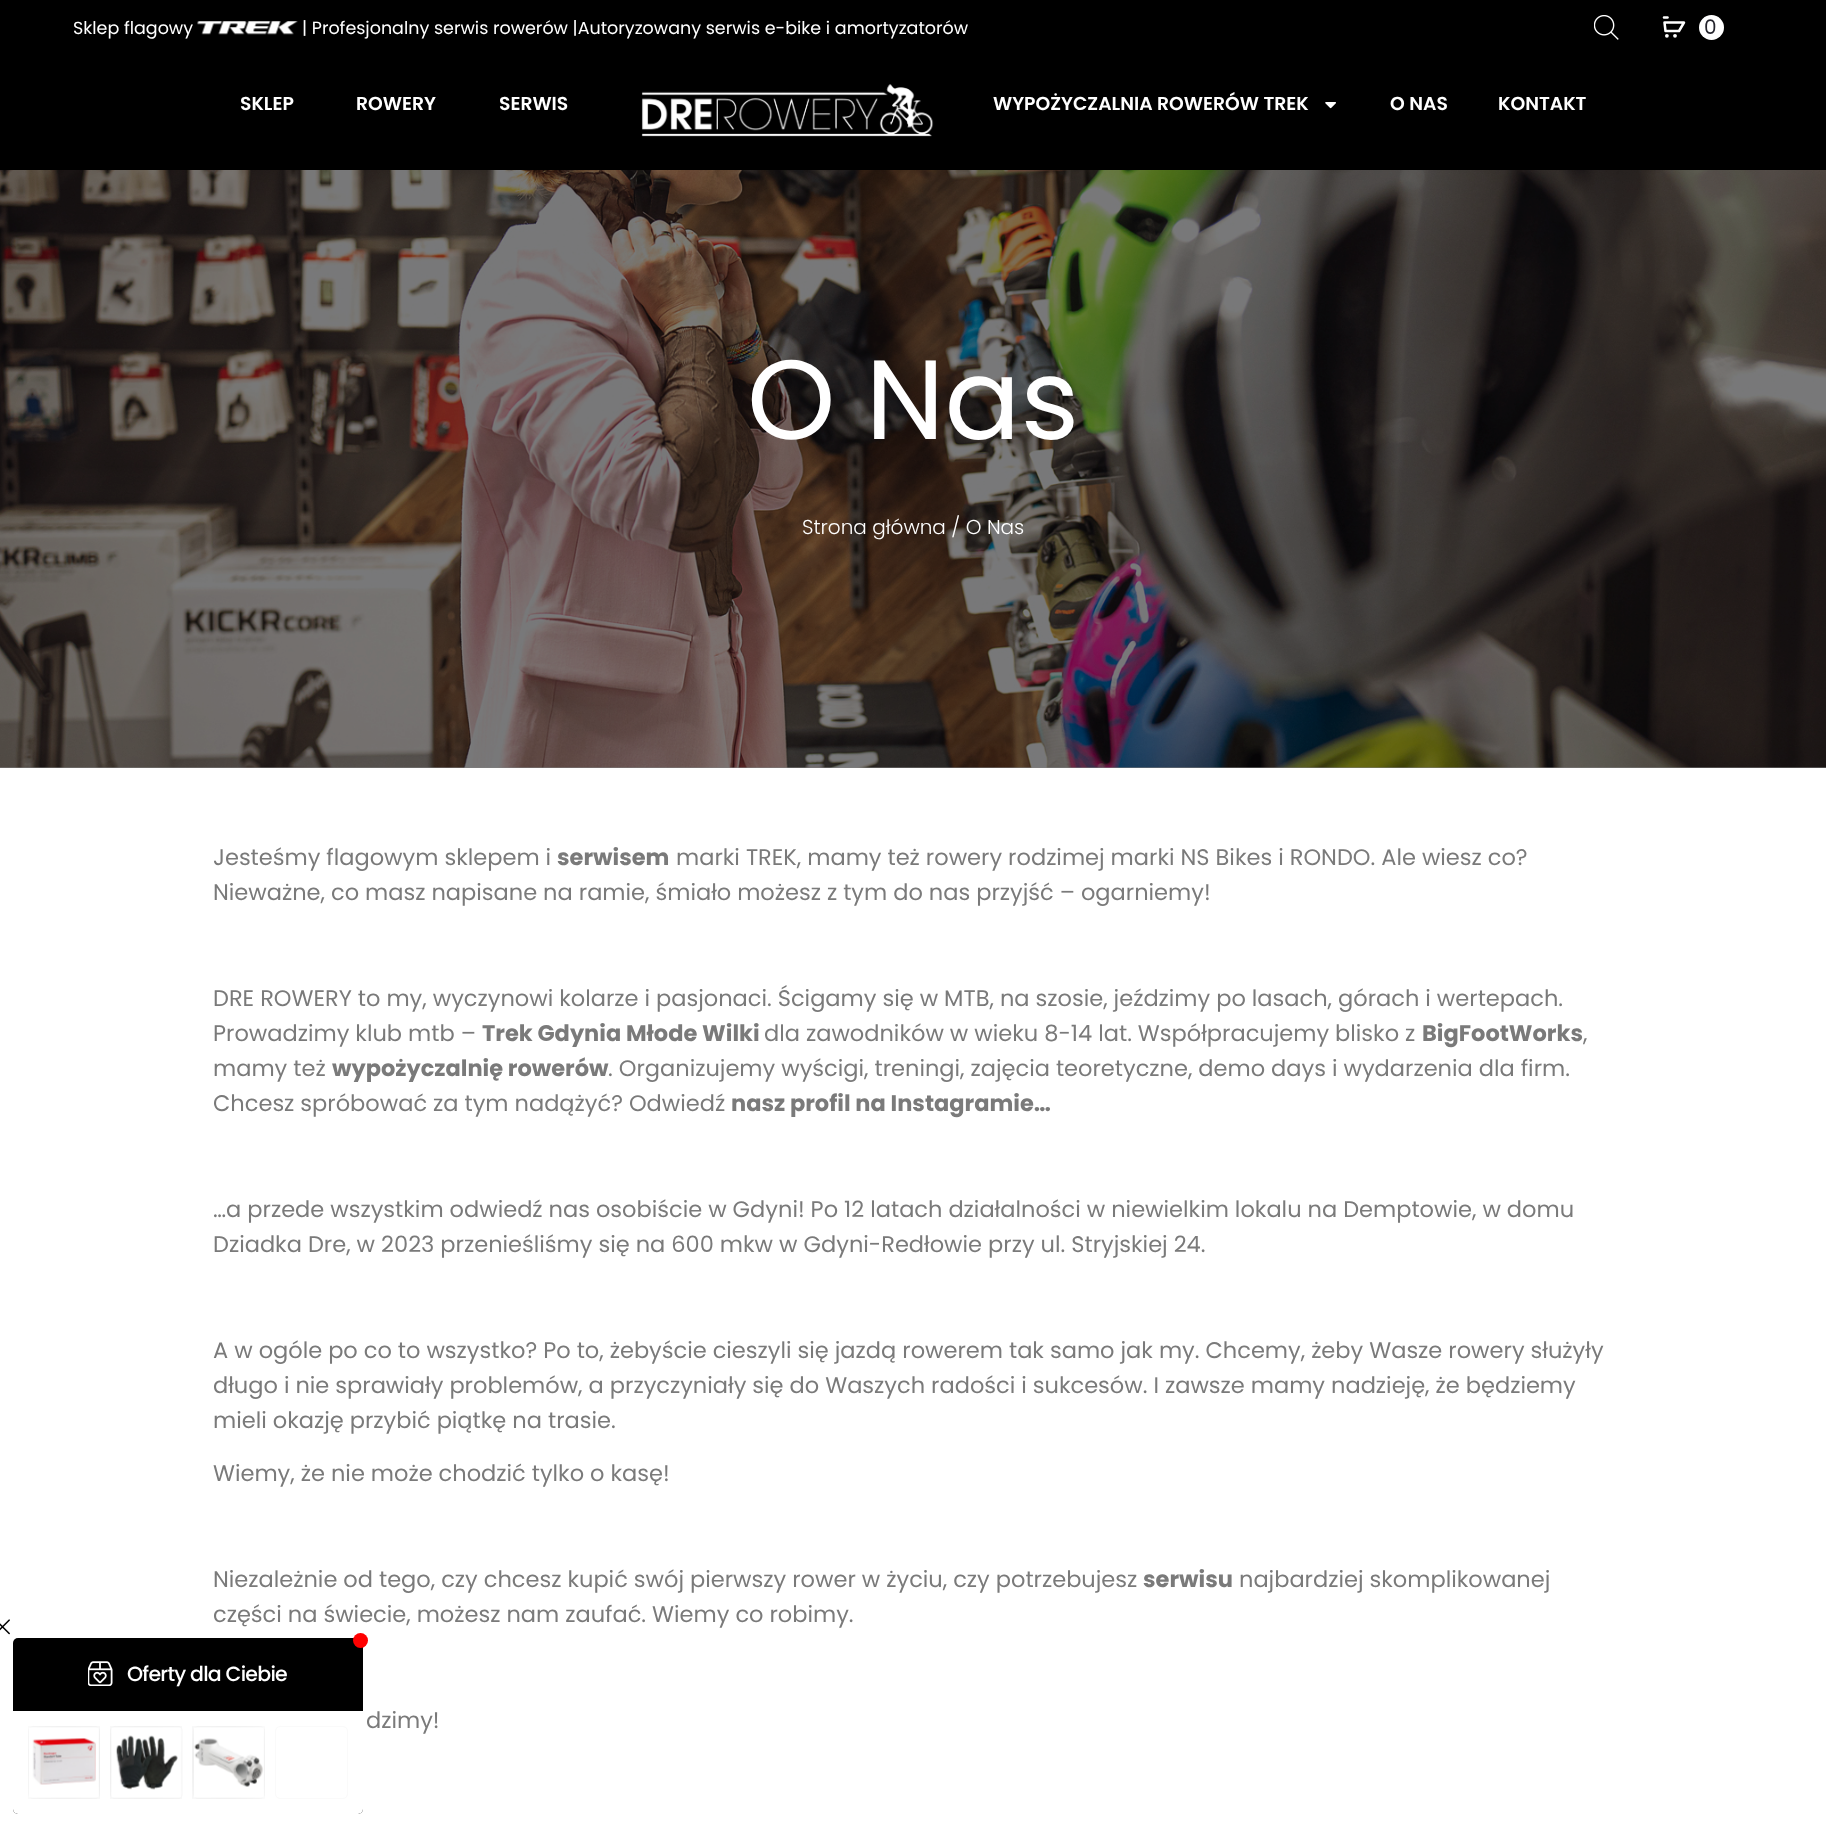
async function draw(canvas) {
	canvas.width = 1826;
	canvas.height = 1826;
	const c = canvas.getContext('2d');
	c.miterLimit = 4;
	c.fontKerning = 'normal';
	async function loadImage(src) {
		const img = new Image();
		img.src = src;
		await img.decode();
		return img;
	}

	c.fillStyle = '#fff';
	c.fillRect(0, 0, 1826, 1826);
	c.fillStyle = '#808080';
	c.fillRect(0, 767, 1826, 1);
	c.fillStyle = '#000';
	c.fillRect(0, 0, 1826, 170);
	c.font = '17.5px Poppins';
	c.fillStyle = '#fff';
	c.fillText('Sklep flagowy', 73, 34);
	c.drawImage(await loadImage('img1.png'), 197, 21, 101, 14);
	c.fillText('| Profesjonalny serwis rowerów |Autoryzowany serwis e-bike i amortyzatorów', 302, 34);
	c.drawImage(await loadImage('img2.png'), 1594, 15, 25, 25);
	c.beginPath();
	c.moveTo(1664.5, 22.5);
	c.lineTo(1665.5, 31);
	c.lineTo(1679, 31);
	c.lineTo(1684, 22.5);
	c.closePath();
	c.strokeStyle = '#fff';
	c.lineWidth = 2.5;
	c.lineJoin = 'round';
	c.stroke();
	c.beginPath();
	c.arc(1666.9, 35.8, 1.9, 0, 2 * Math.PI);
	c.fill();
	c.beginPath();
	c.arc(1675, 35.8, 1.9, 0, 2 * Math.PI);
	c.fill();
	c.beginPath();
	c.moveTo(1664, 17.5);
	c.lineTo(1667.5, 17.5);
	c.lineCap = 'round';
	c.lineJoin = 'miter';
	c.stroke();
	c.beginPath();
	c.arc(1711.5, 27.5, 12.5, 0, 2 * Math.PI);
	c.fill();
	c.font = '20px Poppins';
	c.fillStyle = '#23232c';
	c.fillText('0', 1704, 34);
	c.font = '600 18.75px Poppins';
	c.fillStyle = '#fff';
	for (const [text, x, y] of [
		['SKLEP', 240, 110],
		['ROWERY', 356, 110],
		['SERWIS', 499, 110],
	]) {
		c.fillText(text, x, y);
	}
	c.drawImage(await loadImage('img3.png'), 641, 84, 293, 53);
	c.fillText('WYPOŻYCZALNIA ROWERÓW TREK', 993, 110);
	c.drawImage(await loadImage('img4.png'), 1325, 102, 11, 7);
	c.fillText('O NAS', 1390, 110);
	c.fillText('KONTAKT', 1498, 110);
	c.fillStyle = '#000';
	c.beginPath();
	c.roundRect(13, 1638, 350, 176, 5);
	c.fill();
	c.drawImage(await loadImage('img5.png'), 0, 1619, 10, 16);
	c.fillStyle = '#f00';
	c.beginPath();
	c.arc(360.5, 1640.5, 7.5, 0, 2 * Math.PI);
	c.fill();
	c.drawImage(await loadImage('img6.png'), 88, 1661, 25, 25);
	c.letterSpacing = '-0.75px';
	c.font = '500 20.5px Poppins';
	c.fillStyle = '#fff';
	c.fillText('Oferty dla Ciebie', 127, 1681);
	c.beginPath();
	c.roundRect(13, 1711, 350, 103, [0, 0, 5, 5]);
	c.fill();
	c.beginPath();
	c.roundRect(28.5, 1726.5, 71, 72, 4.5);
	c.strokeStyle = '#fafafa';
	c.lineWidth = 1;
	c.stroke();
	c.drawImage(await loadImage('img7.png'), 28, 1726, 72, 73);
	c.beginPath();
	c.roundRect(110.5, 1726.5, 72, 72, 4.5);
	c.stroke();
	c.drawImage(await loadImage('img8.png'), 110, 1726, 72, 73);
	c.beginPath();
	c.roundRect(193.5, 1726.5, 71, 72, 4.5);
	c.stroke();
	c.drawImage(await loadImage('img9.png'), 192, 1726, 73, 73);
	c.beginPath();
	c.roundRect(275.5, 1726.5, 72, 72, 4.5);
	c.stroke();
	c.drawImage(await loadImage('img10.png'), 0, 170, 1826, 598);
	c.letterSpacing = '0px';
	c.font = '112.5px Poppins';
	c.fillText('O Nas', 747, 439);
	c.font = '300 20px Poppins';
	c.fillText('Strona główna / O Nas', 802, 534);
	c.font = '22.5px Poppins';
	c.fillStyle = '#7a7a7a';
	c.fillText('Jesteśmy flagowym sklepem i', 213, 865);
	c.font = 'bold 22.5px Poppins';
	c.fillText('serwisem', 557, 865);
	c.font = '22.5px Poppins';
	for (const [text, x, y] of [
		['marki TREK, mamy też rowery rodzimej marki NS Bikes i RONDO. Ale wiesz co?', 676, 865],
		['Nieważne, co masz napisane na ramie, śmiało możesz z tym do nas przyjść – ogarniemy!', 213, 900],
		['DRE ROWERY to my, wyczynowi kolarze i pasjonaci. Ścigamy się w MTB, na szosie, jeździmy po lasach, górach i wertepach.', 213, 1006],
		['Prowadzimy klub mtb –', 213, 1041],
	]) {
		c.fillText(text, x, y);
	}
	c.font = 'bold 22.5px Poppins';
	c.fillText('Trek Gdynia Młode Wilki', 482, 1041);
	c.font = '22.5px Poppins';
	c.fillText('dla zawodników w wieku 8-14 lat. Współpracujemy blisko z', 764, 1041);
	c.font = 'bold 22.5px Poppins';
	c.fillText('BigFootWorks', 1422, 1041);
	c.font = '22.5px Poppins';
	c.fillText(',', 1583, 1041);
	c.fillText('mamy też', 213, 1076);
	c.font = 'bold 22.5px Poppins';
	c.fillText('wypożyczalnię rowerów', 332, 1076);
	c.font = '22.5px Poppins';
	c.fillText('. Organizujemy wyścigi, treningi, zajęcia teoretyczne, demo days i wydarzenia dla firm.', 608, 1076);
	c.fillText('Chcesz spróbować za tym nadążyć? Odwiedź', 213, 1111);
	c.font = 'bold 22.5px Poppins';
	c.fillText('nasz profil na Instagramie…', 731, 1111);
	c.font = '22.5px Poppins';
	for (const [text, x, y] of [
		['…a przede wszystkim odwiedź nas osobiście w Gdyni! Po 12 latach działalności w niewielkim lokalu na Demptowie, w domu', 213, 1217],
		['Dziadka Dre, w 2023 przenieśliśmy się na 600 mkw w Gdyni-Redłowie przy ul. Stryjskiej 24.', 213, 1252],
		['A w ogóle po co to wszystko? Po to, żebyście cieszyli się jazdą rowerem tak samo jak my. Chcemy, żeby Wasze rowery służyły', 213, 1358],
		['długo i nie sprawiały problemów, a przyczyniały się do Waszych radości i sukcesów. I zawsze mamy nadzieję, że będziemy', 213, 1393],
		['mieli okazję przybić piątkę na trasie.', 213, 1428],
		['Wiemy, że nie może chodzić tylko o kasę!', 213, 1481],
		['Niezależnie od tego, czy chcesz kupić swój pierwszy rower w życiu, czy potrzebujesz', 213, 1587],
	]) {
		c.fillText(text, x, y);
	}
	c.font = 'bold 22.5px Poppins';
	c.fillText('serwisu', 1143, 1587);
	c.font = '22.5px Poppins';
	for (const [text, x, y] of [
		['najbardziej skomplikowanej', 1239, 1587],
		['części na świecie, możesz nam zaufać. Wiemy co robimy.', 213, 1622],
		['dzimy!', 366, 1728],
	]) {
		c.fillText(text, x, y);
	}
}

draw(document.querySelector('canvas'));
